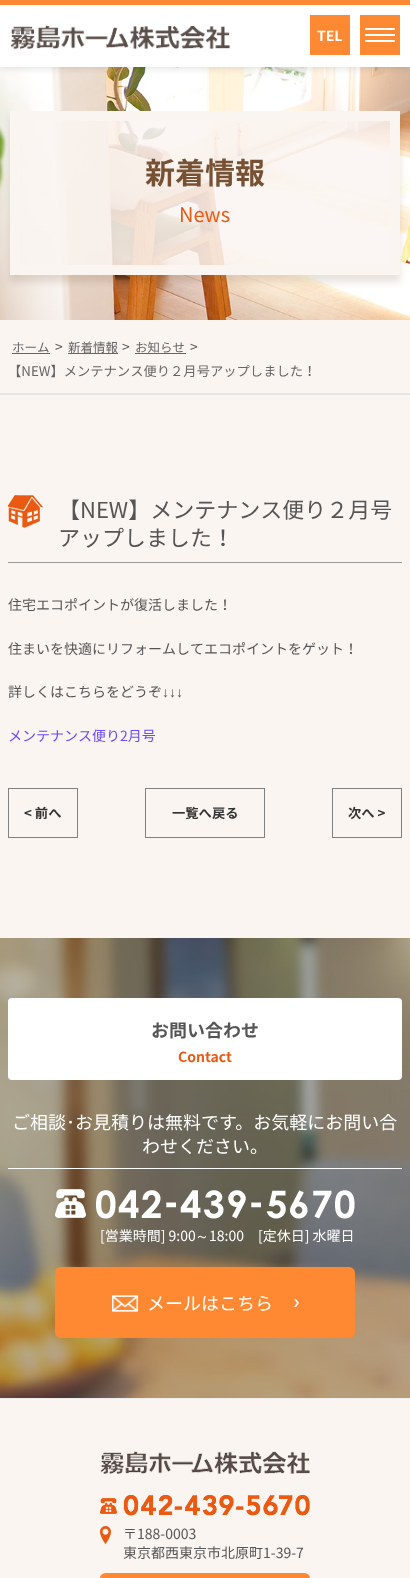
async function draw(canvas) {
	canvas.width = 410;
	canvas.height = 1578;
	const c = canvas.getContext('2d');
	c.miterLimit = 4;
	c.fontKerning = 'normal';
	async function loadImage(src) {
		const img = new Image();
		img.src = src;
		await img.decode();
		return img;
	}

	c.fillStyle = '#faf5f1';
	c.fillRect(0, 0, 410, 1578);
	c.drawImage(await loadImage('img2.png'), 0, 67, 410, 253);
	c.fillStyle = '#0000001a';
	c.filter = 'blur(3px)';
	c.beginPath();
	c.rect(0, 2, 410, 67);
	c.fill();
	c.filter = 'none';
	c.fillStyle = '#fff';
	c.fillRect(0, 5, 410, 62);
	c.fillStyle = '#ff8932';
	c.fillRect(0, 0, 410, 5);
	c.drawImage(await loadImage('img1.png'), 10, 25, 220, 25);
	c.fillRect(310, 15, 40, 40);
	c.font = 'bold 14px Noto Sans JP';
	c.fillStyle = '#fff';
	c.fillText('TEL', 317, 41);
	c.fillStyle = '#ff8932';
	c.fillRect(360, 15, 40, 40);
	c.fillStyle = '#fff';
	c.fillRect(365, 34, 30, 2);
	c.beginPath();
	c.roundRect(365, 28, 30, 2, 1);
	c.fill();
	c.beginPath();
	c.roundRect(365, 40, 30, 2, 1);
	c.fill();
	c.save();
	c.beginPath();
	c.moveTo(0, 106);
	c.lineTo(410, 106);
	c.lineTo(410, 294);
	c.lineTo(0, 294);
	c.closePath();
	c.moveTo(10, 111);
	c.lineTo(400, 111);
	c.lineTo(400, 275);
	c.lineTo(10, 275);
	c.closePath();
	c.clip('evenodd');
	c.fillStyle = '#643a1826';
	c.filter = 'blur(3.5px)';
	c.beginPath();
	c.rect(10, 118, 390, 164);
	c.fill();
	c.filter = 'none';
	c.restore();
	c.fillStyle = '#faf5f1d9';
	c.beginPath();
	c.rect(15, 116, 380, 154);
	c.fill();
	c.strokeStyle = '#faf5f1';
	c.lineWidth = 10;
	c.stroke();
	c.font = 'bold 30px Noto Sans JP';
	c.fillStyle = '#765133';
	c.fillText('新着情報', 145, 184);
	c.font = '20px Noto Sans JP';
	c.fillStyle = '#eb5a13';
	c.fillText('News', 179, 222);
	c.fillStyle = '#e6e6e6';
	c.fillRect(0, 393, 410, 2);
	c.font = '12.5px Noto Sans JP';
	c.fillStyle = '#666';
	c.fillText('ホーム', 12, 352);
	c.fillRect(12, 353, 38, 1);
	c.font = '14px Noto Sans JP';
	c.fillStyle = '#555';
	c.fillText('>', 55, 352);
	c.font = '12.5px Noto Sans JP';
	c.fillStyle = '#666';
	c.fillText('新着情報', 68, 352);
	c.fillRect(68, 353, 50, 1);
	c.font = '14px Noto Sans JP';
	c.fillStyle = '#555';
	c.fillText('>', 122, 352);
	c.font = '12.5px Noto Sans JP';
	c.fillStyle = '#666';
	c.fillText('お知らせ', 135, 352);
	c.fillRect(135, 353, 51, 1);
	c.font = '14px Noto Sans JP';
	c.fillStyle = '#555';
	c.fillText('>', 190, 352);
	c.font = '13.3px Noto Sans JP';
	c.fillStyle = '#666';
	c.fillText('【NEW】メンテナンス便り２月号アップしました！', 8, 376);
	c.drawImage(await loadImage('img3.png'), 8, 495, 35, 33);
	c.fillStyle = '#999';
	c.fillRect(8, 562, 394, 1);
	c.font = '22px Noto Sans JP';
	c.fillStyle = '#555';
	c.fillText('【NEW】メンテナンス便り２月号', 58, 518);
	c.fillText('アップしました！', 58, 546);
	c.font = '14px Noto Sans JP';
	for (const [text, x, y] of [
		['住宅エコポイントが復活しました！', 8, 610],
		['住まいを快適にリフォームしてエコポイントをゲット！', 8, 654],
		['詳しくはこちらをどうぞ', 8, 697],
	]) {
		c.fillText(text, x, y);
	}
	c.font = '14px Liberation Sans';
	c.fillText('↓↓↓', 162, 697);
	c.font = '14px Noto Sans JP';
	c.fillStyle = '#6d46ff';
	c.fillText('メンテナンス便り2月号', 8, 741);
	c.strokeStyle = '#808080';
	c.lineWidth = 1;
	c.strokeRect(8.5, 788.5, 69, 49);
	c.font = 'bold 13.3px Noto Sans JP';
	c.fillStyle = '#333';
	c.fillText('< 前へ', 24, 818);
	c.strokeRect(145.5, 788.5, 119, 49);
	c.fillText('一覧へ戻る', 172, 818);
	c.strokeRect(332.5, 788.5, 69, 49);
	c.fillText('次へ >', 348, 818);
	c.drawImage(await loadImage('img4.png'), 0, 938, 410, 460);
	c.fillStyle = '#fff';
	c.beginPath();
	c.roundRect(8, 998, 394, 82, 4);
	c.fill();
	c.font = 'bold 18px Noto Sans JP';
	c.fillStyle = '#555';
	c.fillText('お問い合わせ', 151, 1037);
	c.font = 'bold 14px Noto Sans JP';
	c.fillStyle = '#eb5a13';
	c.fillText('Contact', 178, 1062);
	c.fillStyle = '#fff';
	c.fillRect(8, 1168, 394, 1);
	c.font = '18px Noto Sans JP';
	c.fillText('ご相談', 12, 1129);
	c.font = '18px IPAGothic';
	c.fillText('･', 66, 1129);
	c.font = '18px Noto Sans JP';
	c.fillText('お見積りは無料です。お気軽にお問い合', 75, 1129);
	c.fillText('わせください。', 142, 1153);
	c.drawImage(await loadImage('img5.png'), 55, 1189, 300, 30);
	c.font = '14px Noto Sans JP';
	c.fillText('[営業時間] 9:00', 100, 1241);
	c.font = '500 14px WenQuanYi Zen Hei';
	c.fillText('～', 195, 1241);
	c.font = '14px Noto Sans JP';
	c.fillText('18:00　[定休日] 水曜日', 209, 1241);
	c.fillStyle = '#ff8932';
	c.beginPath();
	c.roundRect(55, 1267, 300, 71, 6);
	c.fill();
	c.drawImage(await loadImage('img6.png'), 112, 1295, 187, 17);
	c.font = '18px Noto Sans JP';
	c.fillStyle = '#fff';
	c.fillText('メールはこちら', 147, 1310);
	c.fillStyle = '#eee';
	c.fillRect(0, 1398, 410, 1);
	c.drawImage(await loadImage('img7.png'), 100, 1451, 210, 23);
	c.drawImage(await loadImage('img8.png'), 100, 1495, 210, 21);
	c.drawImage(await loadImage('img9.png'), 100, 1526, 11, 18);
	c.font = '14px Noto Sans JP';
	c.fillStyle = '#555';
	c.fillText('〒188-0003', 123, 1539);
	c.fillText('東京都西東京市北原町1-39-7', 123, 1558);
	c.fillStyle = '#ff8932';
	c.beginPath();
	c.roundRect(100, 1573, 210, 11, 6);
	c.fill();
}

draw(document.querySelector('canvas'));
